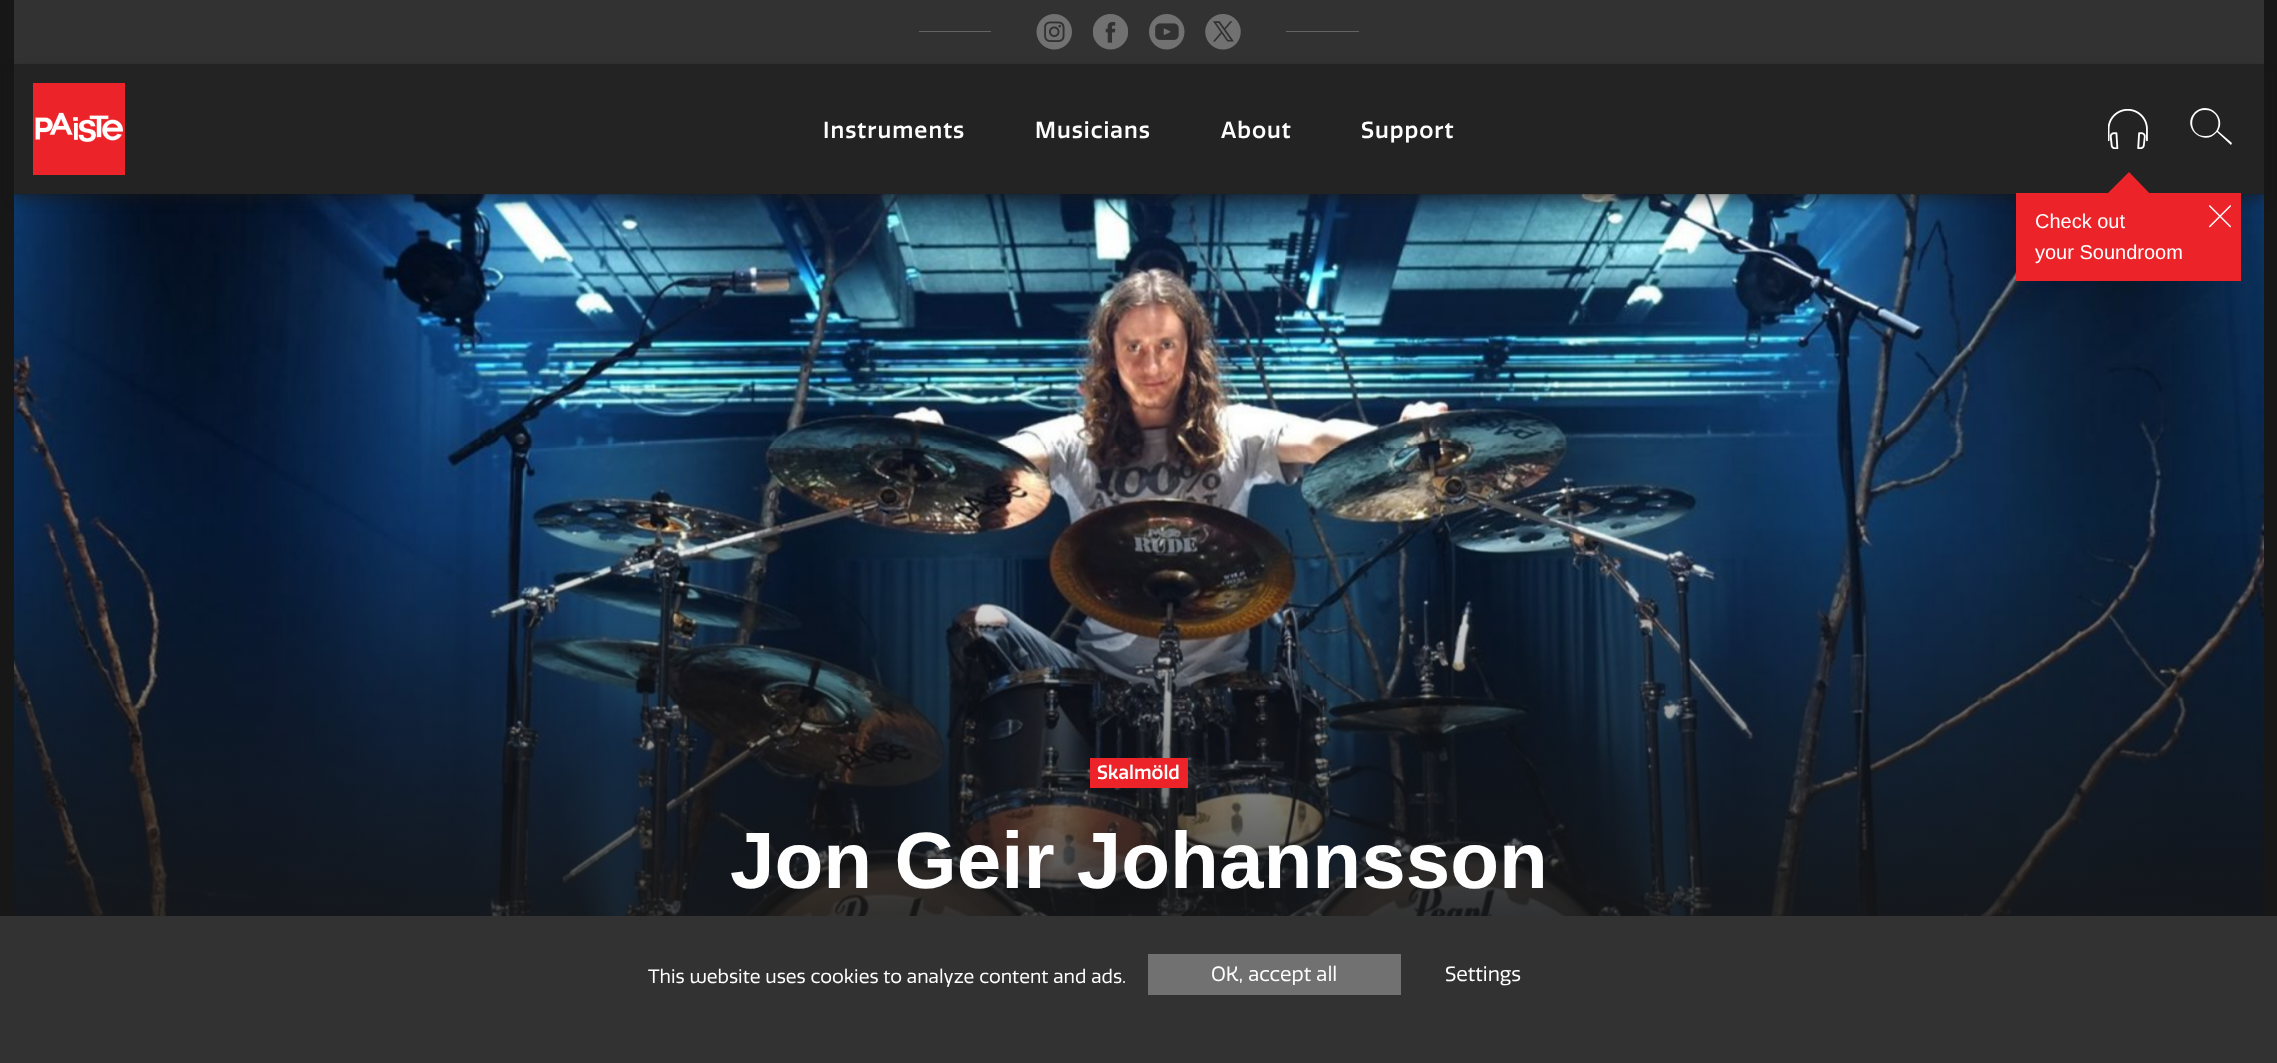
async function draw(canvas) {
	canvas.width = 2277;
	canvas.height = 1063;
	const c = canvas.getContext('2d');
	c.miterLimit = 4;
	c.fontKerning = 'normal';
	async function loadImage(src) {
		const img = new Image();
		img.src = src;
		await img.decode();
		return img;
	}
	let gradient;

	c.fillStyle = '#171717';
	c.fillRect(0, 0, 2277, 1063);
	c.fillStyle = '#323232';
	c.fillRect(14, 0, 2250, 64);
	c.fillStyle = '#646464';
	c.fillRect(919, 31, 72, 1);
	c.drawImage(await loadImage('img1.png'), 1036, 14, 36, 36);
	c.drawImage(await loadImage('img2.png'), 1093, 14, 35, 36);
	c.drawImage(await loadImage('img3.png'), 1149, 14, 36, 36);
	c.drawImage(await loadImage('img4.png'), 1205, 14, 36, 36);
	c.fillRect(1286, 31, 73, 1);
	c.drawImage(await loadImage('img8.png'), 14, 194, 2250, 722);
	c.fillStyle = '#17171780';
	c.filter = 'blur(6px)';
	c.beginPath();
	c.rect(14, 70, 2250, 130);
	c.fill();
	c.filter = 'none';
	c.fillStyle = '#232323';
	c.fillRect(14, 64, 2250, 130);
	c.drawImage(await loadImage('img5.png'), 33, 83, 92, 92);
	c.letterSpacing = '1px';
	c.font = '500 22.5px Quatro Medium';
	c.fillStyle = '#fefefe';
	for (const [text, x, y] of [
		['Instruments', 823, 138],
		['Musicians', 1035, 138],
		['About', 1221, 138],
		['Support', 1361, 138],
	]) {
		c.fillText(text, x, y);
	}
	c.fillStyle = '#fff';
	c.beginPath();
	c.moveTo(2232, 143);
	c.lineTo(2218, 131);
	c.bezierCurveTo(2227, 117, 2208, 100, 2195, 112);
	c.bezierCurveTo(2180, 127, 2204, 148, 2217, 132);
	c.lineTo(2231, 145);
	c.closePath();
	c.moveTo(2205, 136);
	c.bezierCurveTo(2188, 136, 2188, 110, 2205, 110);
	c.bezierCurveTo(2223, 110, 2223, 137, 2205, 136);
	c.closePath();
	c.fill();
	c.drawImage(await loadImage('img6.png'), 2108, 109, 40, 40);
	c.fillStyle = '#ec2329';
	c.fillRect(2016, 193, 225, 88);
	c.beginPath();
	c.moveTo(2129, 172);
	c.lineTo(2155, 199);
	c.lineTo(2129, 225);
	c.lineTo(2102, 199);
	c.closePath();
	c.fill();
	c.letterSpacing = '0px';
	c.font = '20px Liberation Sans';
	c.fillStyle = '#fefefe';
	c.fillText('Check out', 2035, 228);
	c.drawImage(await loadImage('img7.png'), 2209, 205, 22, 23);
	c.fillText('your Soundroom', 2035, 259);
	gradient = c.createLinearGradient(1139, 1006, 1139, 194);
	gradient.addColorStop(0, '#171717');
	gradient.addColorStop(0.6, '#17171700');
	c.fillStyle = gradient;
	c.fillRect(14, 529, 2250, 387);
	c.fillStyle = '#ec2329';
	c.fillRect(1090, 758, 98, 30);
	c.font = '500 18.75px Quatro Medium';
	c.fillStyle = '#fefefe';
	c.fillText('Skalmöld', 1097, 779);
	c.font = 'bold 80px Liberation Sans';
	c.fillText('Jon Geir Johannsson', 730, 888);
	c.fillStyle = '#323232';
	c.fillRect(0, 916, 2277, 147);
	c.font = '18.75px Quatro';
	c.fillStyle = '#fefefe';
	c.fillText('This website uses cookies to analyze content and ads.', 648, 983);
	c.fillStyle = '#717171';
	c.fillRect(1148, 954, 253, 41);
	c.font = '20px Quatro';
	c.fillStyle = '#fefefe';
	c.fillText('OK, accept all', 1211, 981);
	c.fillText('Settings', 1445, 981);
}

draw(document.querySelector('canvas'));
